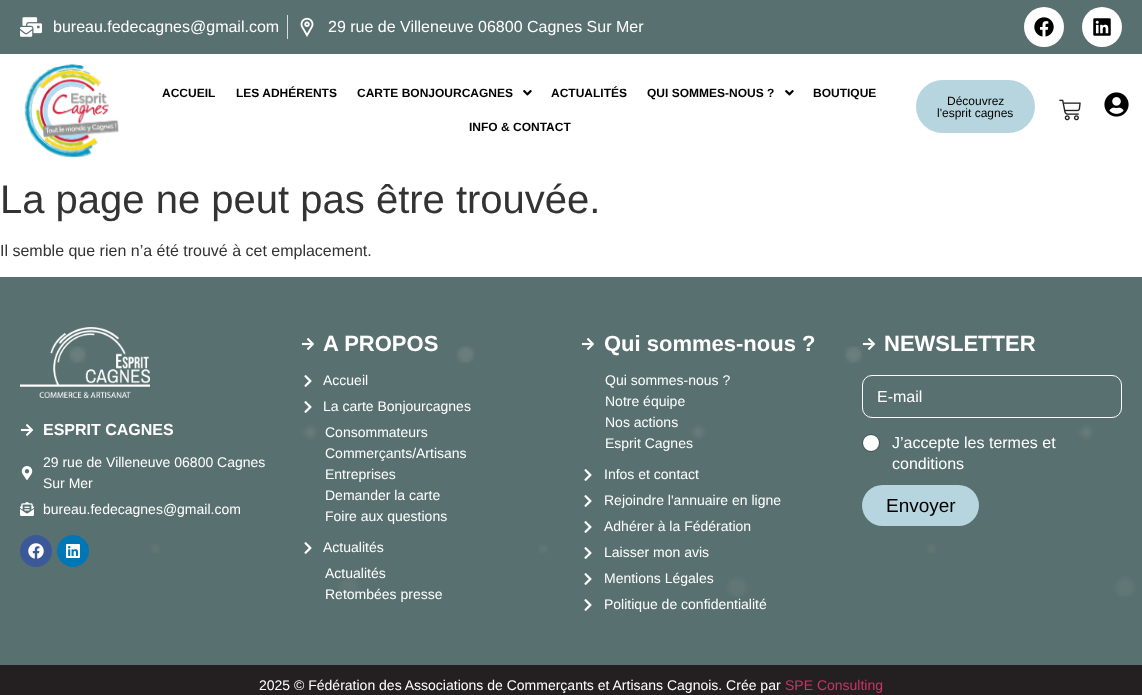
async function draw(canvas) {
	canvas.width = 1142;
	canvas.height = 695;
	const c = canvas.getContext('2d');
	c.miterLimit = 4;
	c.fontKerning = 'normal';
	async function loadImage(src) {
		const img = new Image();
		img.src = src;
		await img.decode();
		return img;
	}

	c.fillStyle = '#fff';
	c.fillRect(0, 0, 1142, 695);
	c.fillStyle = '#58706f';
	c.fillRect(0, 0, 1142, 54);
	c.drawImage(await loadImage('img1.png'), 20, 17, 22, 20);
	c.font = '16px Liberation Sans';
	c.fillStyle = '#fff';
	c.fillText('bureau.fedecagnes@gmail.com', 53, 32);
	c.fillStyle = '#ddd';
	c.fillRect(287, 15, 1, 24);
	c.drawImage(await loadImage('img2.png'), 300, 17, 14, 20);
	c.fillStyle = '#fff';
	c.fillText('29 rue de Villeneuve 06800 Cagnes Sur Mer', 328, 32);
	c.beginPath();
	c.arc(1044, 27, 20, 0, 2 * Math.PI);
	c.fill();
	c.drawImage(await loadImage('img3.png'), 1034, 17, 20, 20);
	c.beginPath();
	c.arc(1102, 27, 20, 0, 2 * Math.PI);
	c.fill();
	c.drawImage(await loadImage('img4.png'), 1093, 18, 18, 18);
	c.drawImage(await loadImage('img5.png'), 24, 64, 95, 93);
	c.font = 'bold 12px Liberation Sans';
	c.fillStyle = '#000';
	for (const [text, x, y] of [
		['ACCUEIL', 162, 97],
		['LES ADHÉRENTS', 236, 97],
		['CARTE BONJOURCAGNES', 357, 97],
	]) {
		c.fillText(text, x, y);
	}
	c.drawImage(await loadImage('img6.png'), 523, 90, 9, 6);
	c.fillText('ACTUALITÉS', 551, 97);
	c.fillText('QUI SOMMES-NOUS ?', 647, 97);
	c.drawImage(await loadImage('img6.png'), 785, 90, 9, 6);
	c.fillText('BOUTIQUE', 813, 97);
	c.fillText('INFO & CONTACT', 469, 131);
	c.fillStyle = '#b7d5df';
	c.beginPath();
	c.roundRect(916, 80, 119, 53, 26.5);
	c.fill();
	c.font = '12px Liberation Sans';
	c.fillStyle = '#000';
	c.fillText('Découvrez', 947, 105);
	c.fillText('l\'esprit cagnes', 937, 117);
	c.drawImage(await loadImage('img7.png'), 1059, 99, 22, 22);
	c.drawImage(await loadImage('img8.png'), 1104, 92, 25, 25);
	c.font = '40px Liberation Sans';
	c.fillStyle = '#333';
	c.fillText('La page ne peut pas être trouvée.', 0, 213);
	c.font = '16px Liberation Sans';
	c.fillText('Il semble que rien n’a été trouvé à cet emplacement.', 0, 256);
	c.fillStyle = '#58706f';
	c.fillRect(0, 277, 1142, 388);
	c.drawImage(await loadImage('img17.png'), 69, 346, 1066, 251);
	c.drawImage(await loadImage('img9.png'), 20, 327, 130, 71);
	c.drawImage(await loadImage('img10.png'), 20, 424, 13, 12);
	c.font = 'bold 16px Liberation Sans';
	c.fillStyle = '#fff';
	c.fillText('ESPRIT CAGNES', 43, 435);
	c.drawImage(await loadImage('img11.png'), 21, 466, 12, 14);
	c.font = '14px Liberation Sans';
	c.fillText('29 rue de Villeneuve 06800 Cagnes', 43, 467);
	c.fillText('Sur Mer', 43, 488);
	c.drawImage(await loadImage('img12.png'), 20, 502, 14, 14);
	c.fillText('bureau.fedecagnes@gmail.com', 43, 514);
	c.fillStyle = '#3b5998';
	c.beginPath();
	c.arc(36, 551, 16, 0, 2 * Math.PI);
	c.fill();
	c.drawImage(await loadImage('img13.png'), 28, 543, 16, 16);
	c.fillStyle = '#0077b5';
	c.beginPath();
	c.arc(73, 551, 16, 0, 2 * Math.PI);
	c.fill();
	c.drawImage(await loadImage('img14.png'), 66, 544, 14, 14);
	c.drawImage(await loadImage('img10.png'), 301, 338, 13, 12);
	c.font = 'bold 22px Liberation Sans';
	c.fillStyle = '#fff';
	c.fillText('A PROPOS', 323, 351);
	c.drawImage(await loadImage('img15.png'), 304, 375, 8, 12);
	c.font = '14px Liberation Sans';
	c.fillText('Accueil', 323, 385);
	c.drawImage(await loadImage('img15.png'), 304, 401, 8, 12);
	for (const [text, x, y] of [
		['La carte Bonjourcagnes', 323, 411],
		['Consommateurs', 325, 437],
		['Commerçants/Artisans', 325, 458],
		['Entreprises', 325, 479],
		['Demander la carte', 325, 500],
		['Foire aux questions', 325, 521],
	]) {
		c.fillText(text, x, y);
	}
	c.drawImage(await loadImage('img15.png'), 304, 542, 8, 12);
	for (const [text, x, y] of [
		['Actualités', 323, 552],
		['Actualités', 325, 578],
		['Retombées presse', 325, 599],
	]) {
		c.fillText(text, x, y);
	}
	c.drawImage(await loadImage('img10.png'), 581, 338, 13, 12);
	c.font = 'bold 22px Liberation Sans';
	c.fillText('Qui sommes-nous ?', 604, 351);
	c.font = '14px Liberation Sans';
	for (const [text, x, y] of [
		['Qui sommes-nous ?', 605, 385],
		['Notre équipe', 605, 406],
		['Nos actions', 605, 427],
		['Esprit Cagnes', 605, 448],
	]) {
		c.fillText(text, x, y);
	}
	c.drawImage(await loadImage('img15.png'), 584, 469, 8, 12);
	c.fillText('Infos et contact', 604, 479);
	c.drawImage(await loadImage('img15.png'), 584, 495, 8, 12);
	c.fillText('Rejoindre l\'annuaire en ligne', 604, 505);
	c.drawImage(await loadImage('img15.png'), 584, 521, 8, 12);
	c.fillText('Adhérer à la Fédération', 604, 531);
	c.drawImage(await loadImage('img15.png'), 584, 547, 8, 12);
	c.fillText('Laisser mon avis', 604, 557);
	c.drawImage(await loadImage('img15.png'), 584, 573, 8, 12);
	c.fillText('Mentions Légales', 604, 583);
	c.drawImage(await loadImage('img15.png'), 584, 599, 8, 12);
	c.fillText('Politique de confidentialité', 604, 609);
	c.drawImage(await loadImage('img16.png'), 862, 338, 13, 12);
	c.font = 'bold 22px Liberation Sans';
	c.fillText('NEWSLETTER', 884, 351);
	c.beginPath();
	c.roundRect(862.5, 375.5, 259, 42, 9.5);
	c.strokeStyle = '#fff';
	c.stroke();
	c.font = '16px Liberation Sans';
	c.fillText('E-mail', 877, 402);
	c.beginPath();
	c.arc(871, 443, 8, 0, 2 * Math.PI);
	c.fill();
	c.beginPath();
	c.arc(871, 443, 8.5, 0, 2 * Math.PI);
	c.strokeStyle = '#00000040';
	c.stroke();
	c.fillText('J’accepte les termes et', 892, 448);
	c.fillText('conditions', 892, 469);
	c.fillStyle = '#b7d5df';
	c.beginPath();
	c.roundRect(862, 485, 117, 41, 20.5);
	c.fill();
	c.font = '19px Liberation Sans';
	c.fillStyle = '#000';
	c.fillText('Envoyer', 886, 512);
	c.fillStyle = '#242021';
	c.fillRect(0, 665, 1142, 30);
	c.font = '14px Liberation Sans';
	c.fillStyle = '#fff';
	c.fillText('2025 © Fédération des Associations de Commerçants et Artisans Cagnois. Crée par', 259, 690);
	c.fillStyle = '#c36';
	c.fillText('SPE Consulting', 785, 690);
}

draw(document.querySelector('canvas'));
